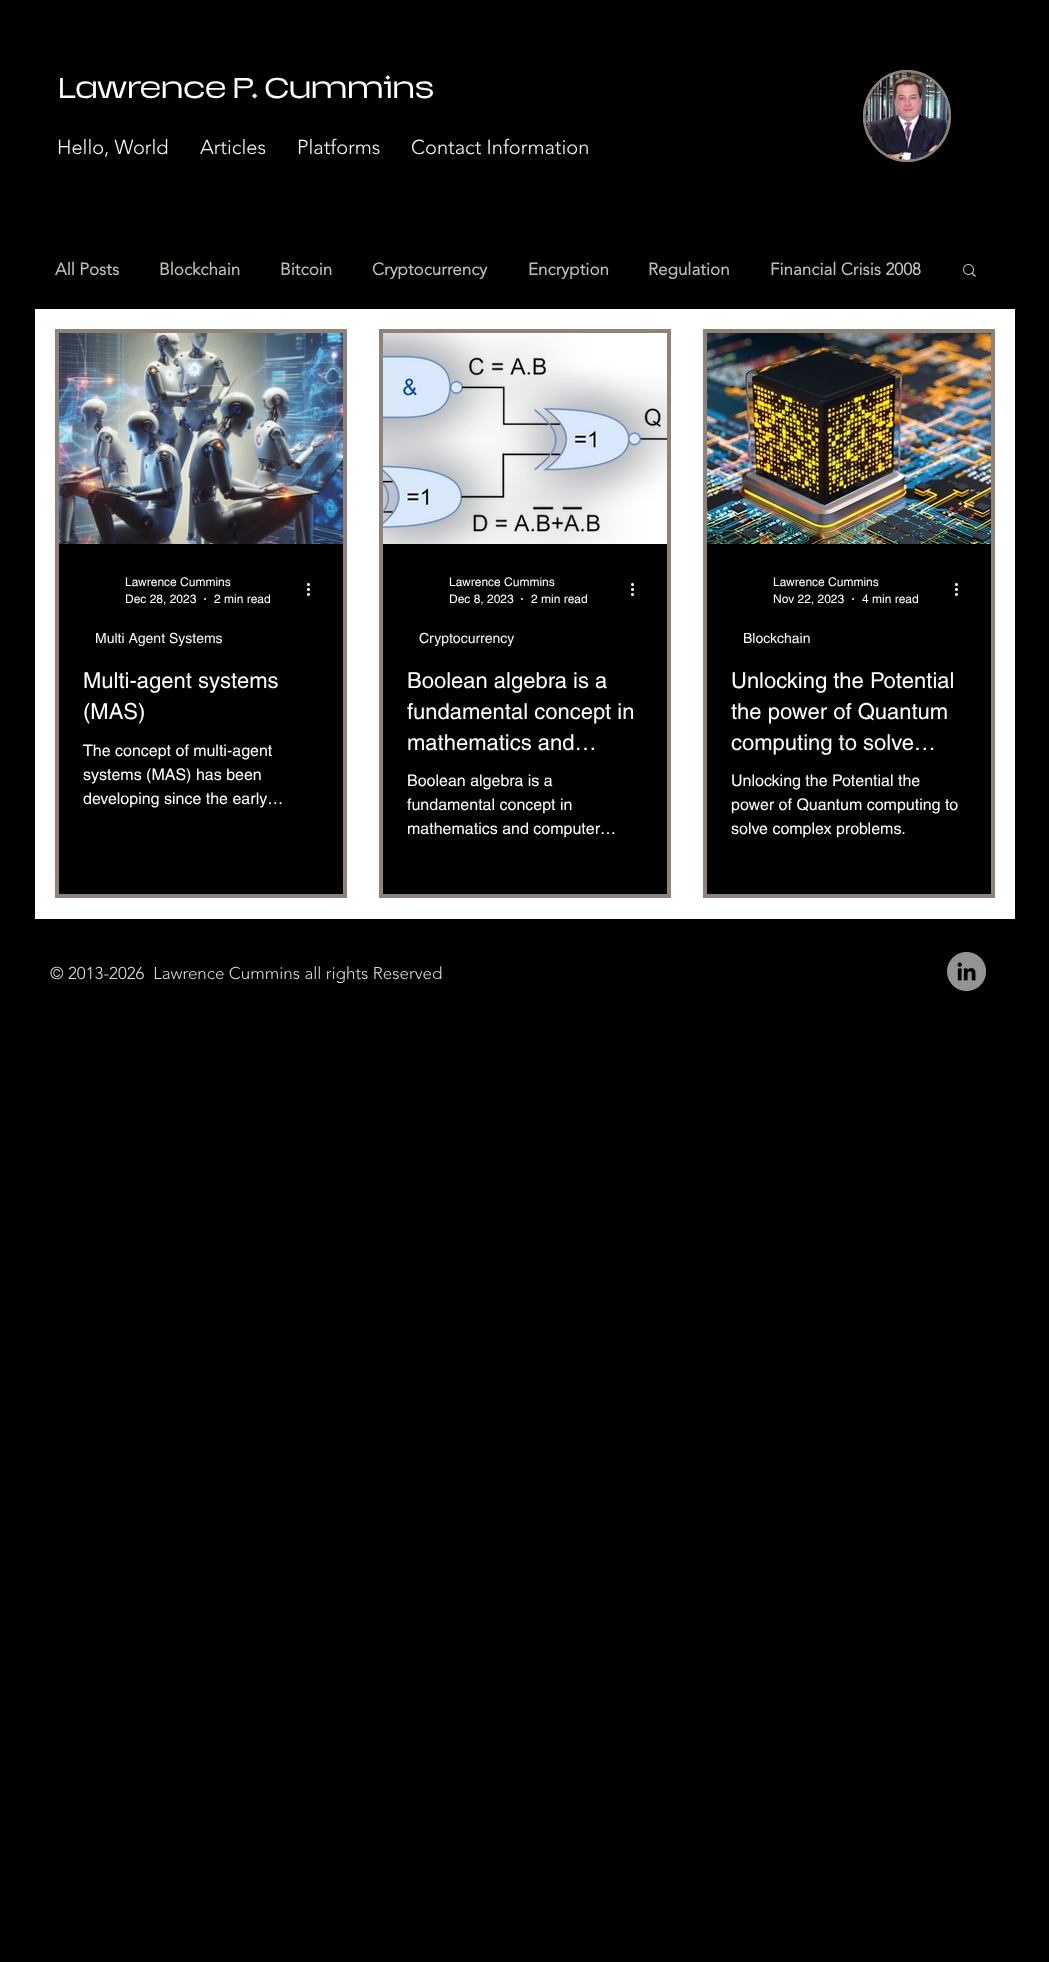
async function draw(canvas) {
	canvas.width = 1049;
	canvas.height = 1962;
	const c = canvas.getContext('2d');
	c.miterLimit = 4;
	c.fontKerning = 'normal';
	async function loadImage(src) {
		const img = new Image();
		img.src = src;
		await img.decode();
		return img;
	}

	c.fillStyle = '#000';
	c.fillRect(0, 0, 1049, 1962);
	c.font = '25px "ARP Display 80"';
	c.fillStyle = '#fff';
	c.fillText('Lawrence P. Cummins', 58, 98);
	c.fillStyle = '#8e8279';
	c.beginPath();
	c.ellipse(907, 116, 44, 46, 0, 0, 2 * Math.PI);
	c.fill();
	c.beginPath();
	c.moveTo(907, 71);
	c.bezierCurveTo(930.5, 71, 950, 91, 950, 116);
	c.bezierCurveTo(950, 141, 930.5, 161, 907, 161);
	c.bezierCurveTo(883.5, 161, 864, 141, 864, 116);
	c.bezierCurveTo(864, 91, 883.5, 71, 907, 71);
	c.closePath();
	c.strokeStyle = '#8e8279';
	c.lineWidth = 2;
	c.stroke();
	c.drawImage(await loadImage('img1.png'), 865, 72, 84, 88);
	c.font = '300 20px "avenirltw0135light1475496"';
	c.fillStyle = '#fff6ef';
	for (const [text, x, y] of [
		['Hello, World', 57, 154],
		['Articles', 200, 154],
		['Platforms', 297, 154],
		['Contact Information', 411, 154],
	]) {
		c.fillText(text, x, y);
	}
	c.fillStyle = '#fff';
	c.fillRect(35, 309, 980, 610);
	c.font = 'bold 17px "avenirltw0135light1475496"';
	c.fillStyle = '#c7bcb4';
	for (const [text, x, y] of [
		['All Posts', 55, 275],
		['Blockchain', 159, 275],
		['Bitcoin', 280, 275],
		['Cryptocurrency', 372, 275],
		['Encryption', 528, 275],
		['Regulation', 648, 275],
		['Financial Crisis 2008', 770, 275],
	]) {
		c.fillText(text, x, y);
	}
	c.drawImage(await loadImage('img2.png'), 963, 264, 13, 13);
	c.lineWidth = 4;
	c.strokeRect(57, 331, 288, 565);
	c.drawImage(await loadImage('img3.png'), 59, 333, 284, 211);
	c.fillStyle = '#000';
	c.fillRect(59, 544, 284, 350);
	c.font = '12px helvetica';
	c.fillStyle = '#fff';
	c.fillText('Lawrence Cummins', 125, 586);
	c.fillText('Dec 28, 2023', 125, 603);
	c.beginPath();
	c.arc(205, 599, 1, 0, 2 * Math.PI);
	c.fill();
	c.fillText('2 min read', 214, 603);
	c.drawImage(await loadImage('img4.png'), 307, 583, 3, 13);
	c.font = '14px helvetica';
	c.fillStyle = '#fff6ef';
	c.fillText('Multi Agent Systems', 95, 643);
	c.font = '22px helvetica';
	c.fillStyle = '#fff';
	c.fillText('Multi-agent systems', 83, 688);
	c.fillText('(MAS)', 83, 719);
	c.font = '16px helvetica';
	for (const [text, x, y] of [
		['The concept of multi-agent', 83, 756],
		['systems (MAS) has been', 83, 780],
		['developing since the early…', 83, 804],
	]) {
		c.fillText(text, x, y);
	}
	c.strokeRect(381, 331, 288, 565);
	c.drawImage(await loadImage('img5.png'), 383, 333, 284, 211);
	c.drawImage(await loadImage('img6.png'), 383, 355, 284, 177);
	c.fillStyle = '#000';
	c.fillRect(383, 544, 284, 350);
	c.font = '12px helvetica';
	c.fillStyle = '#fff';
	c.fillText('Lawrence Cummins', 449, 586);
	c.fillText('Dec 8, 2023', 449, 603);
	c.beginPath();
	c.arc(522, 599, 1, 0, 2 * Math.PI);
	c.fill();
	c.fillText('2 min read', 531, 603);
	c.drawImage(await loadImage('img4.png'), 631, 583, 3, 13);
	c.font = '14px helvetica';
	c.fillStyle = '#fff6ef';
	c.fillText('Cryptocurrency', 419, 643);
	c.font = '22px helvetica';
	c.fillStyle = '#fff';
	for (const [text, x, y] of [
		['Boolean algebra is a', 407, 688],
		['fundamental concept in', 407, 719],
		['mathematics and…', 407, 750],
	]) {
		c.fillText(text, x, y);
	}
	c.font = '16px helvetica';
	for (const [text, x, y] of [
		['Boolean algebra is a', 407, 786],
		['fundamental concept in', 407, 810],
		['mathematics and computer…', 407, 834],
	]) {
		c.fillText(text, x, y);
	}
	c.strokeRect(705, 331, 288, 565);
	c.drawImage(await loadImage('img7.png'), 707, 333, 284, 211);
	c.fillStyle = '#000';
	c.fillRect(707, 544, 284, 350);
	c.font = '12px helvetica';
	c.fillStyle = '#fff';
	c.fillText('Lawrence Cummins', 773, 586);
	c.fillText('Nov 22, 2023', 773, 603);
	c.beginPath();
	c.arc(853, 599, 1, 0, 2 * Math.PI);
	c.fill();
	c.fillText('4 min read', 862, 603);
	c.drawImage(await loadImage('img4.png'), 955, 583, 3, 13);
	c.font = '14px helvetica';
	c.fillStyle = '#fff6ef';
	c.fillText('Blockchain', 743, 643);
	c.font = '22px helvetica';
	c.fillStyle = '#fff';
	for (const [text, x, y] of [
		['Unlocking the Potential', 731, 688],
		['the power of Quantum', 731, 719],
		['computing to solve…', 731, 750],
	]) {
		c.fillText(text, x, y);
	}
	c.font = '16px helvetica';
	for (const [text, x, y] of [
		['Unlocking the Potential the', 731, 786],
		['power of Quantum computing to', 731, 810],
		['solve complex problems.', 731, 834],
	]) {
		c.fillText(text, x, y);
	}
	c.font = '300 17px "avenirltw0135light1475496"';
	c.fillStyle = '#dbdbdb';
	c.fillText('© 2013-2026  Lawrence Cummins all rights Reserved', 50, 979);
	c.drawImage(await loadImage('img8.png'), 947, 952, 39, 39);
}

draw(document.querySelector('canvas'));
